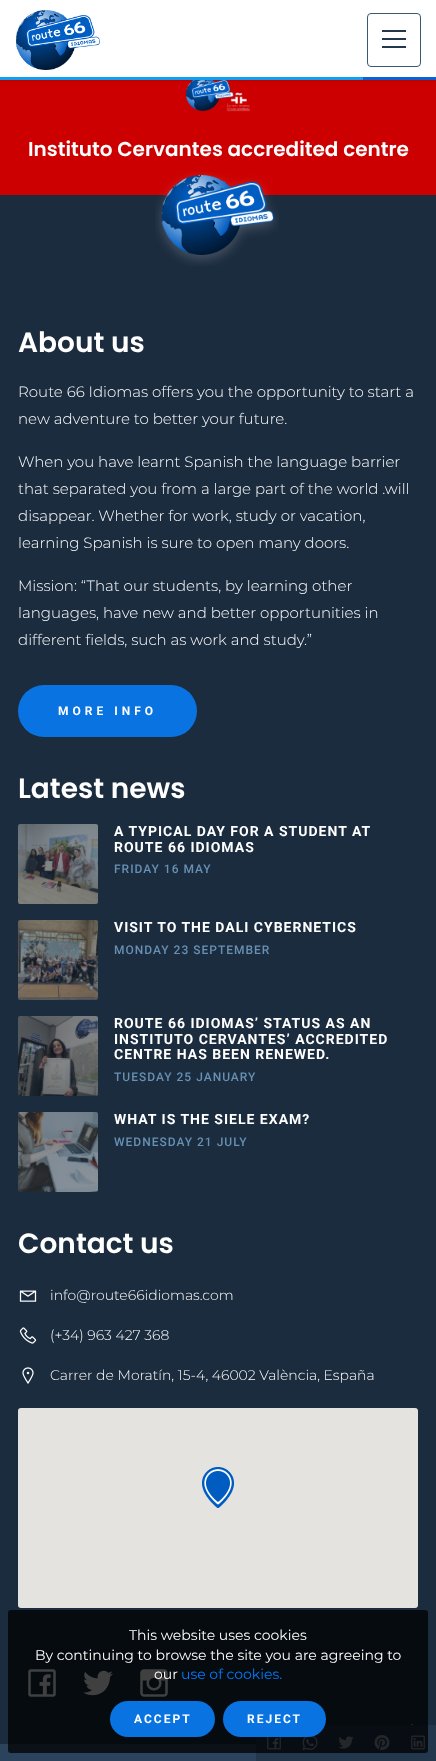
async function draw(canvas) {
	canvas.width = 436;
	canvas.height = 1761;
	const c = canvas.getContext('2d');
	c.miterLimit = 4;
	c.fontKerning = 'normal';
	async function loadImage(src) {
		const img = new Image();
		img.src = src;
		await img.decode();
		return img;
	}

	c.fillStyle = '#1b2c3f';
	c.fillRect(0, 0, 436, 1761);
	c.fillStyle = '#c00';
	c.fillRect(0, 80, 436, 115);
	c.drawImage(await loadImage('img3.png'), 186, 80, 64, 32);
	c.fillStyle = '#0000001a';
	c.filter = 'blur(1px)';
	c.beginPath();
	c.rect(0, 1, 436, 80);
	c.fill();
	c.filter = 'none';
	c.fillStyle = '#fff';
	c.fillRect(0, 0, 436, 77);
	c.drawImage(await loadImage('img1.png'), 16, 10, 84, 60);
	c.beginPath();
	c.roundRect(367.5, 13.5, 53, 53, 3.5);
	c.strokeStyle = '#3a5774';
	c.stroke();
	c.drawImage(await loadImage('img2.png'), 382, 30, 24, 18);
	c.fillStyle = '#0663da';
	c.fillRect(363, 77, 73, 3);
	c.fillStyle = '#0e9ff2';
	c.fillRect(0, 77, 363, 3);
	c.font = '600 20px Poppins';
	c.fillStyle = '#fff';
	c.fillText('Instituto Cervantes accredited centre', 28, 156);
	c.drawImage(await loadImage('img4.png'), 155, 172, 124, 94);
	c.font = '600 28px Poppins';
	c.fillText('About us', 18, 352);
	c.font = '300 15px Montserrat';
	for (const [text, x, y] of [
		['Route 66 Idiomas offers you the opportunity to start a', 18, 397],
		['new adventure to better your future.', 18, 424],
		['When you have learnt Spanish the language barrier', 18, 467],
		['that separated you from a large part of the world .will', 18, 494],
		['disappear. Whether for work, study or vacation,', 18, 521],
		['learning Spanish is sure to open many doors.', 18, 548],
		['Mission: “That our students, by learning other', 18, 591],
		['languages, have new and better opportunities in', 18, 618],
		['different fields, such as work and study.”', 18, 645],
	]) {
		c.fillText(text, x, y);
	}
	c.fillStyle = '#0873e1';
	c.beginPath();
	c.roundRect(18, 685, 179, 52, 26);
	c.fill();
	c.letterSpacing = '4px';
	c.font = 'bold 12px Roboto';
	c.fillStyle = '#fff';
	c.fillText('MORE INFO', 58, 715);
	c.letterSpacing = '0px';
	c.font = '600 28px Poppins';
	c.fillText('Latest news', 18, 798);
	c.drawImage(await loadImage('img5.png'), 18, 824, 80, 80);
	c.letterSpacing = '1px';
	c.font = 'bold 14px Roboto';
	c.fillText('A TYPICAL DAY FOR A STUDENT AT', 114, 836);
	c.fillText('ROUTE 66 IDIOMAS', 114, 852);
	c.font = '500 12px Roboto';
	c.fillStyle = '#6790b3';
	c.fillText('FRIDAY 16 MAY', 114, 873);
	c.drawImage(await loadImage('img6.png'), 18, 920, 80, 80);
	c.font = 'bold 14px Roboto';
	c.fillStyle = '#fff';
	c.fillText('VISIT TO THE DALI CYBERNETICS', 114, 932);
	c.font = '500 12px Roboto';
	c.fillStyle = '#6790b3';
	c.fillText('MONDAY 23 SEPTEMBER', 114, 954);
	c.drawImage(await loadImage('img7.png'), 18, 1016, 80, 80);
	c.font = 'bold 14px Roboto';
	c.fillStyle = '#fff';
	for (const [text, x, y] of [
		['ROUTE 66 IDIOMAS’ STATUS AS AN', 114, 1028],
		['INSTITUTO CERVANTES’ ACCREDITED', 114, 1044],
		['CENTRE HAS BEEN RENEWED.', 114, 1059],
	]) {
		c.fillText(text, x, y);
	}
	c.font = '500 12px Roboto';
	c.fillStyle = '#6790b3';
	c.fillText('TUESDAY 25 JANUARY', 114, 1081);
	c.drawImage(await loadImage('img8.png'), 18, 1112, 80, 80);
	c.font = 'bold 14px Roboto';
	c.fillStyle = '#fff';
	c.fillText('WHAT IS THE SIELE EXAM?', 114, 1124);
	c.font = '500 12px Roboto';
	c.fillStyle = '#6790b3';
	c.fillText('WEDNESDAY 21 JULY', 114, 1146);
	c.letterSpacing = '0px';
	c.font = '600 28px Poppins';
	c.fillStyle = '#fff';
	c.fillText('Contact us', 18, 1253);
	c.drawImage(await loadImage('img9.png'), 19, 1290, 18, 12);
	c.font = '300 14px Montserrat';
	c.fillText('info@route66idiomas.com', 50, 1300);
	c.drawImage(await loadImage('img10.png'), 19, 1327, 18, 17);
	c.fillText('(+34) 963 427 368', 50, 1340);
	c.drawImage(await loadImage('img11.png'), 22, 1367, 12, 17);
	c.fillText('Carrer de Moratín, 15-4, 46002 València, España', 50, 1380);
	c.fillStyle = '#e5e3df';
	c.beginPath();
	c.roundRect(18, 1408, 400, 200, 3);
	c.fill();
	c.drawImage(await loadImage('img12.png'), 202, 1467, 32, 41);
	c.drawImage(await loadImage('img13.png'), 28, 1669, 28, 28);
	c.drawImage(await loadImage('img14.png'), 83, 1670, 30, 26);
	c.drawImage(await loadImage('img15.png'), 140, 1669, 28, 28);
	c.fillStyle = '#2b435c';
	c.fillRect(0, 1744, 256, 17);
	c.drawImage(await loadImage('img16.png'), 411, 1724, 2, 1);
	c.fillStyle = '#23374d';
	c.fillRect(256, 1725, 180, 36);
	c.drawImage(await loadImage('img17.png'), 267, 1737, 14, 13);
	c.drawImage(await loadImage('img18.png'), 302, 1736, 16, 14);
	c.drawImage(await loadImage('img19.png'), 338, 1736, 16, 13);
	c.drawImage(await loadImage('img20.png'), 374, 1735, 16, 15);
	c.drawImage(await loadImage('img21.png'), 411, 1735, 14, 15);
	c.fillStyle = '#000000bf';
	c.beginPath();
	c.roundRect(8, 1610, 420, 143, 3);
	c.fill();
	c.font = '14px Montserrat';
	c.fillStyle = '#fff';
	for (const [text, x, y] of [
		['This website uses cookies', 129, 1640],
		['By continuing to browse the site you are agreeing to', 35, 1660],
		['our', 154, 1679],
	]) {
		c.fillText(text, x, y);
	}
	c.fillStyle = '#007bff';
	c.fillText('use of cookies.', 181, 1679);
	c.fillStyle = '#0873e1';
	c.beginPath();
	c.roundRect(110, 1701, 105, 36, 18);
	c.fill();
	c.letterSpacing = '2px';
	c.font = 'bold 12px Roboto';
	c.fillStyle = '#fff';
	c.fillText('ACCEPT', 134, 1723);
	c.fillStyle = '#0873e1';
	c.beginPath();
	c.roundRect(223, 1701, 103, 36, 18);
	c.fill();
	c.fillStyle = '#fff';
	c.fillText('REJECT', 247, 1723);
}

draw(document.querySelector('canvas'));
